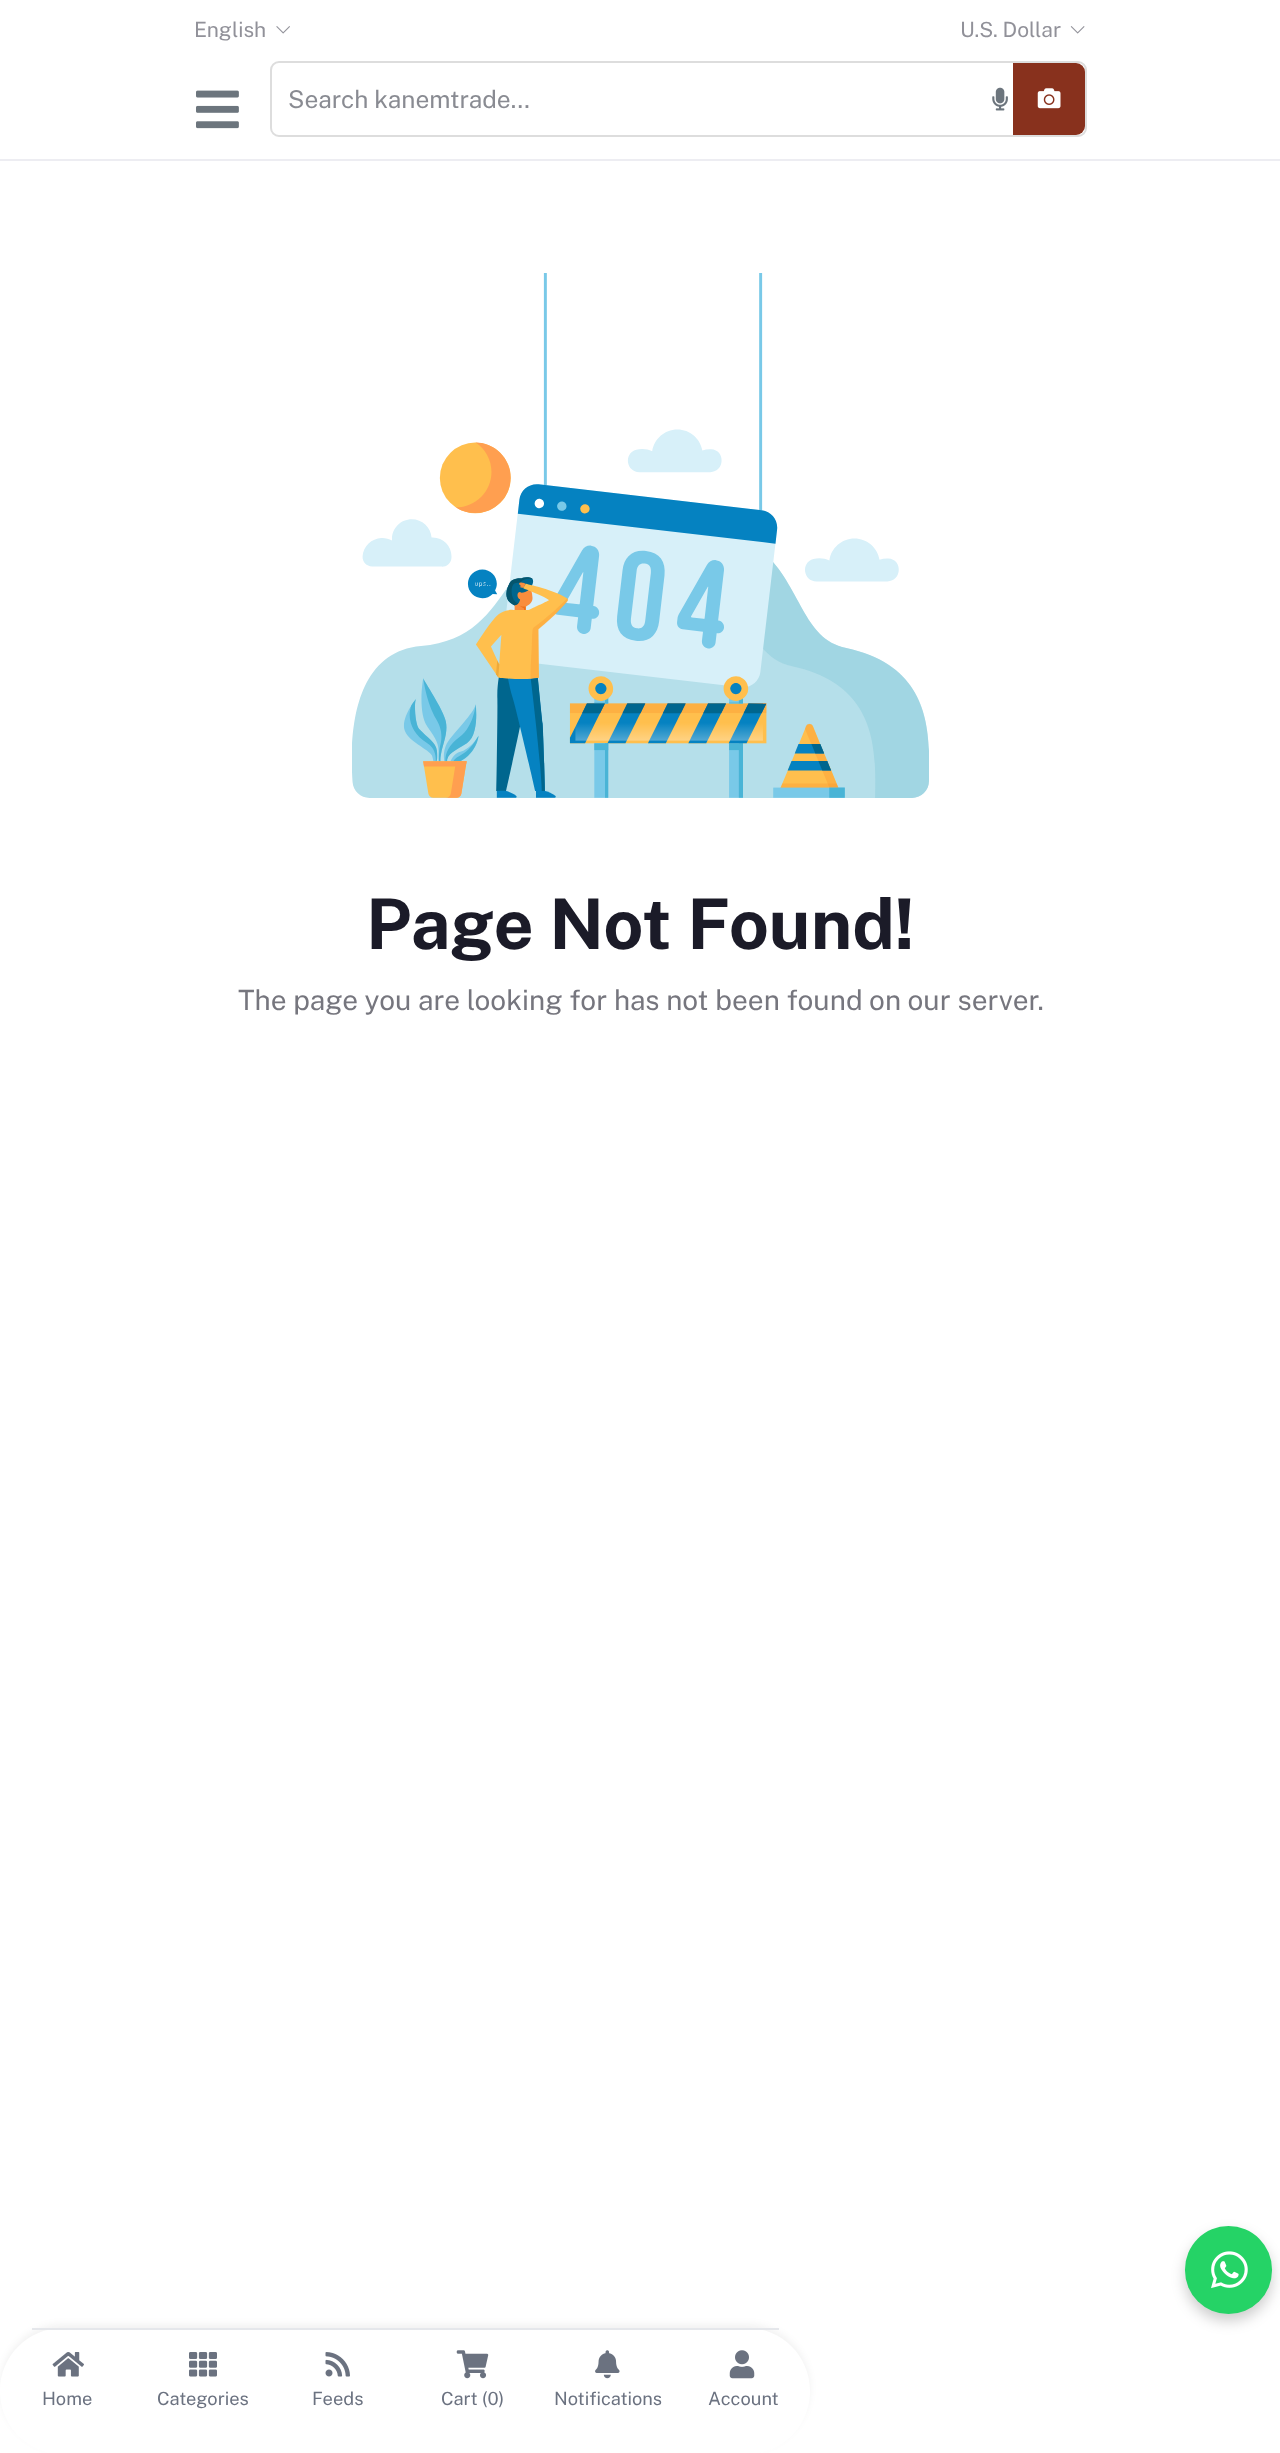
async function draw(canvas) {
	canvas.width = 1280;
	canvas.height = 2453;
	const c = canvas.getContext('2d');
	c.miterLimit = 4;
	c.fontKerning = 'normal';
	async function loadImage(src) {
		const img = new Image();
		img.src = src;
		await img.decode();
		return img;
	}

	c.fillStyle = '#fff';
	c.fillRect(0, 0, 1280, 2453);
	c.font = '21px Public Sans';
	c.fillStyle = '#919199';
	c.fillText('English', 194, 37);
	c.drawImage(await loadImage('img1.png'), 276, 26, 14, 8);
	c.fillText('U.S. Dollar', 960, 37);
	c.drawImage(await loadImage('img2.png'), 1070, 26, 15, 8);
	c.fillStyle = '#ededf2';
	c.fillRect(0, 159, 1280, 2);
	c.drawImage(await loadImage('img3.png'), 196, 90, 43, 39);
	c.beginPath();
	c.roundRect(271, 62, 815, 74, 8);
	c.strokeStyle = '#ddd';
	c.lineWidth = 2;
	c.stroke();
	c.font = '24.5px Public Sans';
	c.fillStyle = '#898b92';
	c.fillText('Search kanemtrade...', 288, 108);
	c.drawImage(await loadImage('img4.png'), 992, 87, 16, 24);
	c.fillStyle = '#88311d';
	c.beginPath();
	c.roundRect(1013, 63, 72, 72, [0, 9, 9, 0]);
	c.fill();
	c.drawImage(await loadImage('img5.png'), 1037, 88, 24, 21);
	c.drawImage(await loadImage('img6.png'), 352, 273, 577, 525);
	c.font = 'bold 70px Public Sans';
	c.fillStyle = '#1b1b28';
	c.fillText('Page Not Found!', 366, 949);
	c.font = '28px Public Sans';
	c.fillStyle = '#76767e';
	c.fillText('The page you are looking for has not been found on our server.', 238, 1010);
	c.fillStyle = '#00000033';
	c.filter = 'blur(7px)';
	c.beginPath();
	c.roundRect(1185, 2233, 87, 88, 43.5);
	c.fill();
	c.filter = 'none';
	c.fillStyle = '#25d366';
	c.beginPath();
	c.roundRect(1185, 2226, 87, 88, 43.5);
	c.fill();
	c.drawImage(await loadImage('img7.png'), 1211, 2251, 37, 38);
	c.save();
	c.beginPath();
	c.moveTo(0, 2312);
	c.lineTo(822, 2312);
	c.lineTo(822, 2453);
	c.lineTo(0, 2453);
	c.closePath();
	c.moveTo(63, 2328);
	c.lineTo(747, 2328);
	c.bezierCurveTo(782, 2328, 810, 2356, 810, 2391);
	c.bezierCurveTo(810, 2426, 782, 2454, 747, 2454);
	c.lineTo(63, 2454);
	c.bezierCurveTo(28, 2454, 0, 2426, 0, 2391);
	c.bezierCurveTo(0, 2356, 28, 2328, 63, 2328);
	c.closePath();
	c.clip('evenodd');
	c.fillStyle = '#0000000d';
	c.filter = 'blur(3.5px)';
	c.beginPath();
	c.roundRect(0, 2324, 810, 126, 63);
	c.fill();
	c.filter = 'none';
	c.restore();
	c.fillStyle = '#e5e7eb';
	c.fillRect(32, 2328, 747, 2);
	c.drawImage(await loadImage('img8.png'), 52, 2352, 32, 25);
	c.font = '18.25px Public Sans';
	c.fillStyle = '#6b7280';
	c.fillText('Home', 42, 2405);
	c.drawImage(await loadImage('img9.png'), 189, 2352, 28, 25);
	c.fillText('Categories', 157, 2405);
	c.drawImage(await loadImage('img10.png'), 325, 2352, 25, 25);
	c.fillText('Feeds', 312, 2405);
	c.drawImage(await loadImage('img11.png'), 456, 2350, 33, 29);
	c.fillText('Cart (0)', 441, 2405);
	c.drawImage(await loadImage('img12.png'), 595, 2350, 25, 29);
	c.fillText('Notifications', 554, 2405);
	c.drawImage(await loadImage('img13.png'), 729, 2350, 26, 29);
	c.fillText('Account', 708, 2405);
}

draw(document.querySelector('canvas'));
